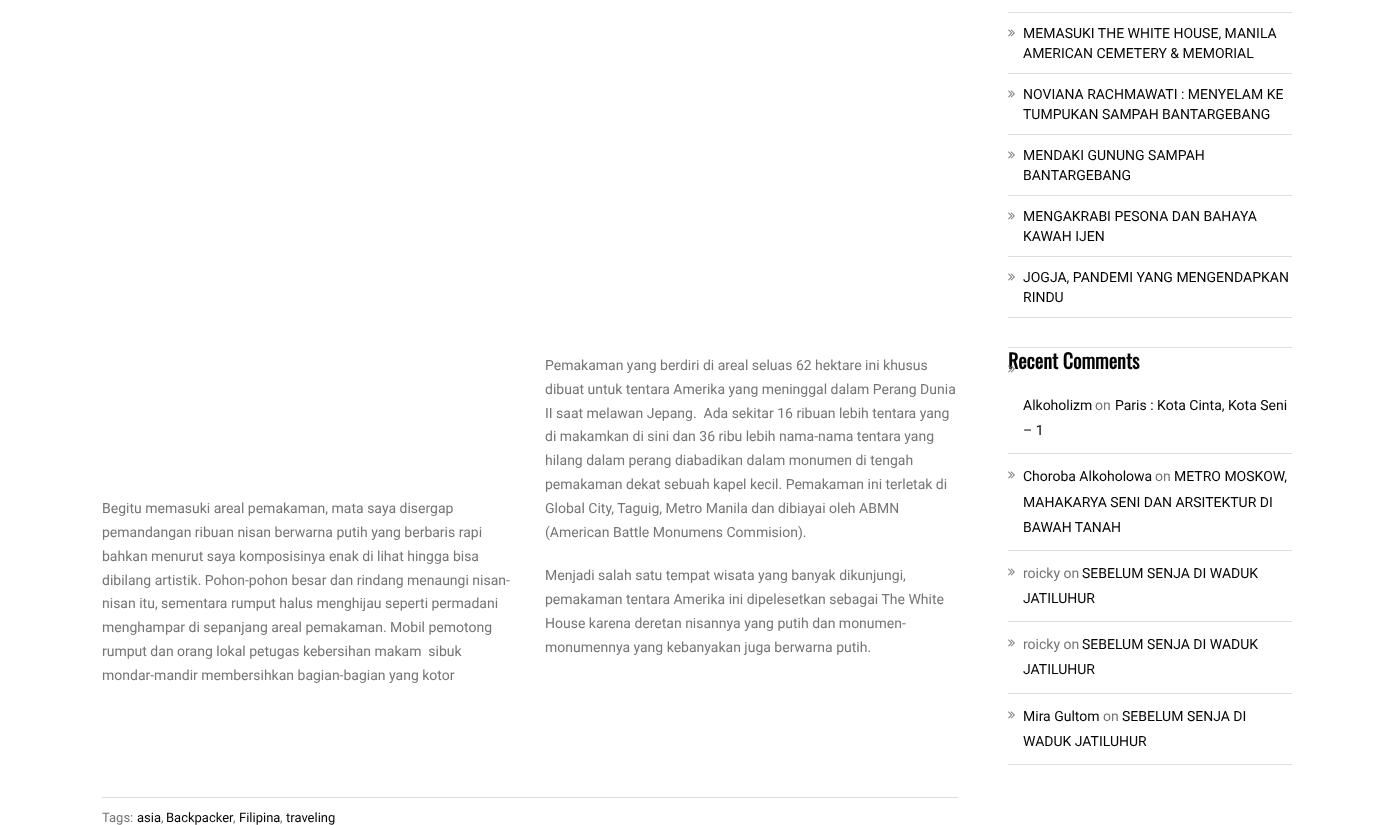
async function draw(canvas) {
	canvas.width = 1394;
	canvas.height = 825;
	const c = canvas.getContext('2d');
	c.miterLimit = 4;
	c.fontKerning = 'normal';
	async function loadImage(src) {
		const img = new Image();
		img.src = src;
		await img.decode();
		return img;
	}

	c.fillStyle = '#fff';
	c.fillRect(0, 0, 1394, 825);
	c.font = '14px Roboto';
	c.fillStyle = '#757575';
	for (const [text, x, y] of [
		['Begitu memasuki areal pemakaman, mata saya disergap', 102, 513],
		['pemandangan ribuan nisan berwarna putih yang berbaris rapi', 102, 537],
		['bahkan menurut saya komposisinya enak di lihat hingga bisa', 102, 561],
		['dibilang artistik. Pohon-pohon besar dan rindang menaungi nisan-', 102, 585],
		['nisan itu, sementara rumput halus menghijau seperti permadani', 102, 608],
		['menghampar di sepanjang areal pemakaman. Mobil pemotong', 102, 632],
		['rumput dan orang lokal petugas kebersihan makam  sibuk', 102, 656],
		['mondar-mandir membersihkan bagian-bagian yang kotor', 102, 680],
		['Pemakaman yang berdiri di areal seluas 62 hektare ini khusus', 545, 370],
		['dibuat untuk tentara Amerika yang meninggal dalam Perang Dunia', 545, 394],
		['II saat melawan Jepang.  Ada sekitar 16 ribuan lebih tentara yang', 545, 418],
		['di makamkan di sini dan 36 ribu lebih nama-nama tentara yang', 545, 441],
		['hilang dalam perang diabadikan dalam monumen di tengah', 545, 465],
		['pemakaman dekat sebuah kapel kecil. Pemakaman ini terletak di', 545, 489],
		['Global City, Taguig, Metro Manila dan dibiayai oleh ABMN', 545, 513],
		['(American Battle Monumens Commision).', 545, 537],
		['Menjadi salah satu tempat wisata yang banyak dikunjungi,', 545, 580],
		['pemakaman tentara Amerika ini dipelesetkan sebagai The White', 545, 604],
		['House karena deretan nisannya yang putih dan monumen-', 545, 628],
		['monumennya yang kebanyakan juga berwarna putih.', 545, 652],
	]) {
		c.fillText(text, x, y);
	}
	c.fillStyle = '#ddd';
	c.fillRect(102, 797, 856, 1);
	c.font = '13px Roboto';
	c.fillStyle = '#757575';
	c.fillText('Tags:', 102, 822);
	c.fillStyle = '#050505';
	c.fillText('asia', 137, 822);
	c.fillStyle = '#757575';
	c.fillText(',', 161, 822);
	c.fillStyle = '#050505';
	c.fillText('Backpacker', 166, 822);
	c.fillStyle = '#757575';
	c.fillText(',', 233, 822);
	c.fillStyle = '#050505';
	c.fillText('Filipina', 239, 822);
	c.fillStyle = '#757575';
	c.fillText(',', 280, 822);
	c.fillStyle = '#050505';
	c.fillText('traveling', 286, 822);
	c.fillStyle = '#ddd';
	c.fillRect(1008, 12, 284, 1);
	c.fillRect(1008, 73, 284, 1);
	c.drawImage(await loadImage('img1.png'), 1008, 29, 7, 8);
	c.font = '14px Roboto';
	c.fillStyle = '#050505';
	c.fillText('MEMASUKI THE WHITE HOUSE, MANILA', 1023, 38);
	c.fillText('AMERICAN CEMETERY & MEMORIAL', 1023, 58);
	c.fillStyle = '#ddd';
	c.fillRect(1008, 134, 284, 1);
	c.drawImage(await loadImage('img1.png'), 1008, 90, 7, 8);
	c.fillStyle = '#050505';
	c.fillText('NOVIANA RACHMAWATI : MENYELAM KE', 1023, 99);
	c.fillText('TUMPUKAN SAMPAH BANTARGEBANG', 1023, 119);
	c.fillStyle = '#ddd';
	c.fillRect(1008, 195, 284, 1);
	c.drawImage(await loadImage('img1.png'), 1008, 151, 7, 8);
	c.fillStyle = '#050505';
	c.fillText('MENDAKI GUNUNG SAMPAH', 1023, 160);
	c.fillText('BANTARGEBANG', 1023, 180);
	c.fillStyle = '#ddd';
	c.fillRect(1008, 256, 284, 1);
	c.drawImage(await loadImage('img1.png'), 1008, 212, 7, 8);
	c.fillStyle = '#050505';
	c.fillText('MENGAKRABI PESONA DAN BAHAYA', 1023, 221);
	c.fillText('KAWAH IJEN', 1023, 241);
	c.fillStyle = '#ddd';
	c.fillRect(1008, 317, 284, 1);
	c.drawImage(await loadImage('img1.png'), 1008, 273, 7, 8);
	c.fillStyle = '#050505';
	c.fillText('JOGJA, PANDEMI YANG MENGENDAPKAN', 1023, 282);
	c.fillText('RINDU', 1023, 302);
	c.font = 'bold 20px Oswald';
	c.fillText('Recent Comments', 1008, 369);
	c.fillStyle = '#ddd';
	c.fillRect(1008, 347, 284, 1);
	c.fillRect(1008, 453, 284, 1);
	c.drawImage(await loadImage('img2.png'), 1008, 365, 7, 8);
	c.font = '14px Roboto';
	c.fillStyle = '#050505';
	c.fillText('Alkoholizm', 1023, 410);
	c.fillStyle = '#757575';
	c.fillText('on', 1095, 410);
	c.fillStyle = '#050505';
	c.fillText('Paris : Kota Cinta, Kota Seni', 1115, 410);
	c.fillText('– 1', 1023, 435);
	c.fillStyle = '#ddd';
	c.fillRect(1008, 550, 284, 1);
	c.drawImage(await loadImage('img1.png'), 1008, 471, 7, 8);
	c.fillStyle = '#050505';
	c.fillText('Choroba Alkoholowa', 1023, 481);
	c.fillStyle = '#757575';
	c.fillText('on', 1155, 481);
	c.fillStyle = '#050505';
	for (const [text, x, y] of [
		['METRO MOSKOW,', 1174, 481],
		['MAHAKARYA SENI DAN ARSITEKTUR DI', 1023, 507],
		['BAWAH TANAH', 1023, 532],
	]) {
		c.fillText(text, x, y);
	}
	c.fillStyle = '#ddd';
	c.fillRect(1008, 621, 284, 1);
	c.drawImage(await loadImage('img1.png'), 1008, 568, 7, 8);
	c.fillStyle = '#757575';
	c.fillText('roicky on', 1023, 578);
	c.fillStyle = '#050505';
	c.fillText('SEBELUM SENJA DI WADUK', 1082, 578);
	c.fillText('JATILUHUR', 1023, 603);
	c.fillStyle = '#ddd';
	c.fillRect(1008, 693, 284, 1);
	c.drawImage(await loadImage('img1.png'), 1008, 639, 7, 8);
	c.fillStyle = '#757575';
	c.fillText('roicky on', 1023, 649);
	c.fillStyle = '#050505';
	c.fillText('SEBELUM SENJA DI WADUK', 1082, 649);
	c.fillText('JATILUHUR', 1023, 674);
	c.fillStyle = '#ddd';
	c.fillRect(1008, 764, 284, 1);
	c.drawImage(await loadImage('img1.png'), 1008, 711, 7, 8);
	c.fillStyle = '#050505';
	c.fillText('Mira Gultom', 1023, 721);
	c.fillStyle = '#757575';
	c.fillText('on', 1103, 721);
	c.fillStyle = '#050505';
	c.fillText('SEBELUM SENJA DI', 1122, 721);
	c.fillText('WADUK JATILUHUR', 1023, 746);
}

draw(document.querySelector('canvas'));
